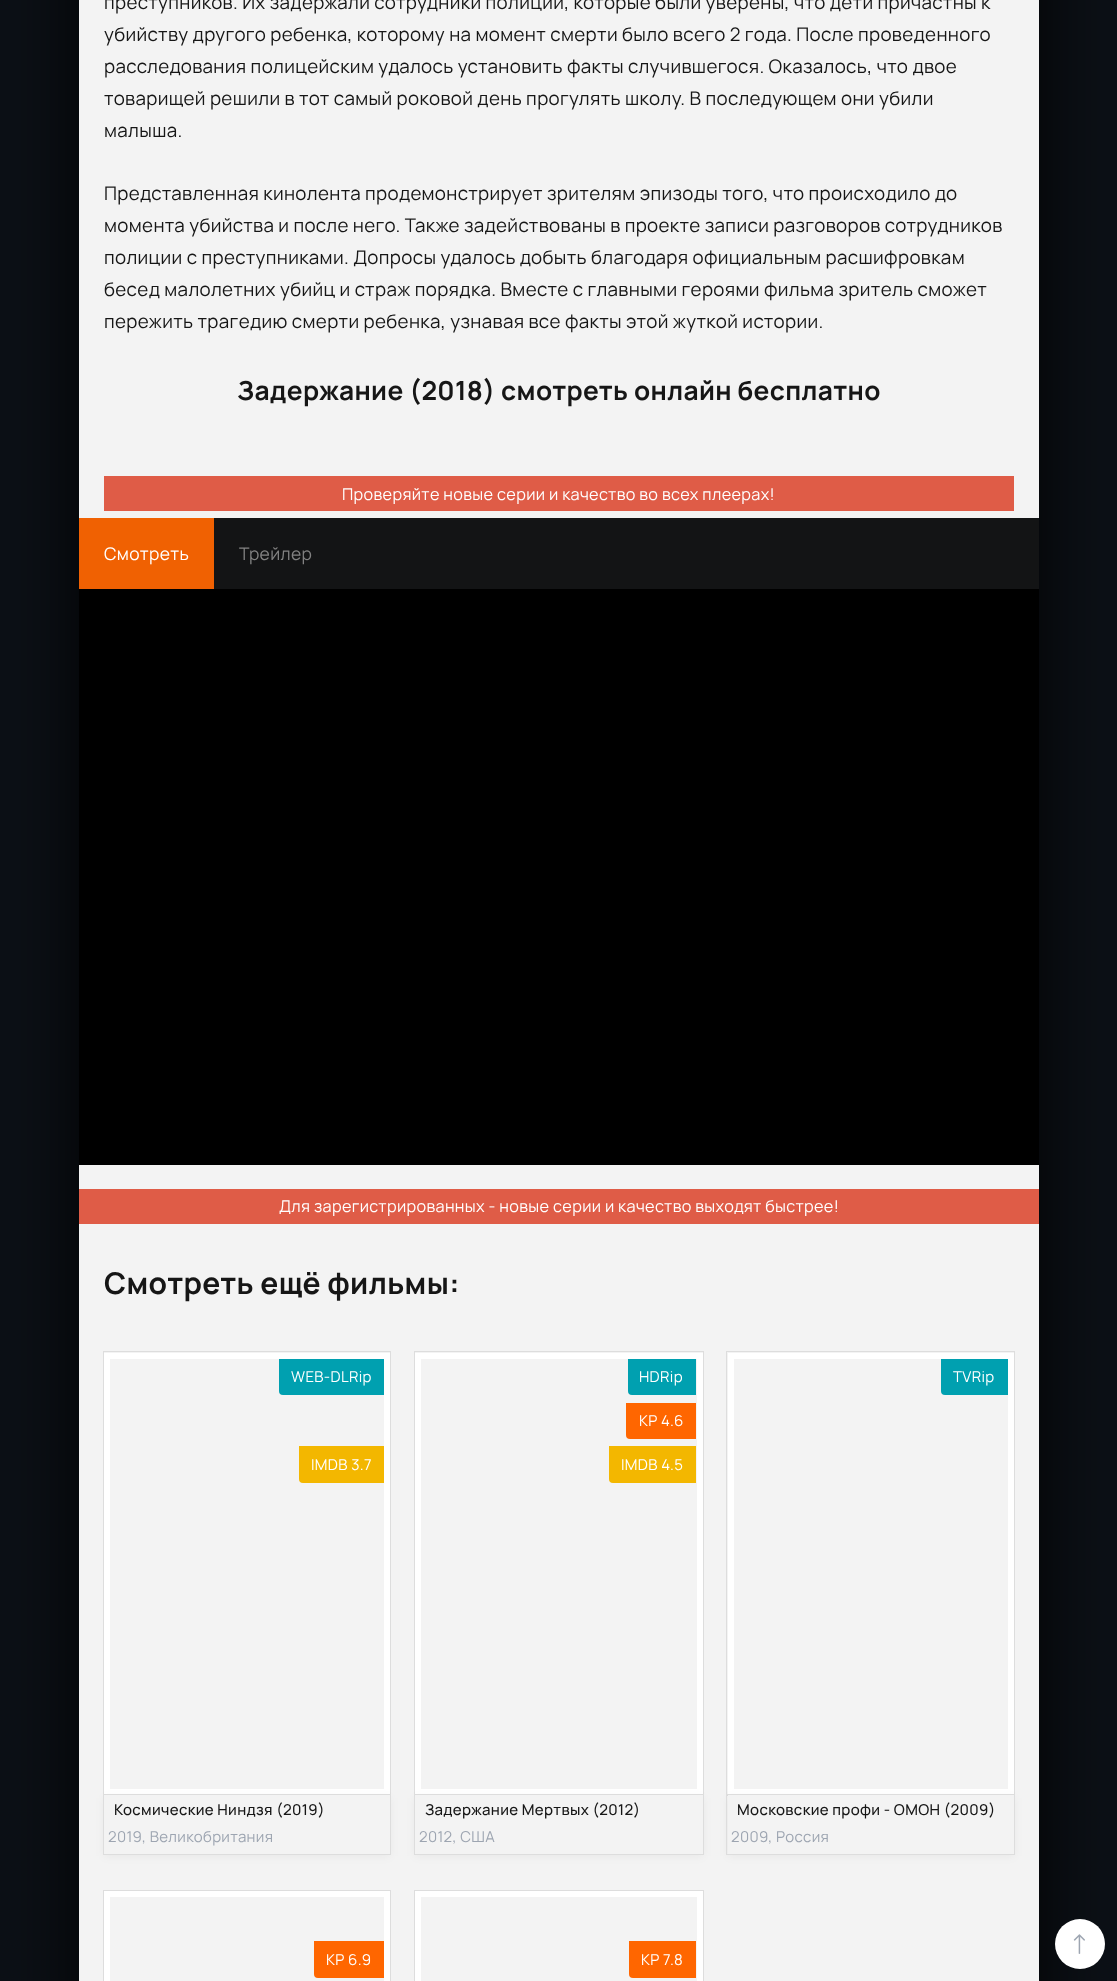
async function draw(canvas) {
	canvas.width = 1117;
	canvas.height = 1981;
	const c = canvas.getContext('2d');
	c.miterLimit = 4;
	c.fontKerning = 'normal';
	async function loadImage(src) {
		const img = new Image();
		img.src = src;
		await img.decode();
		return img;
	}

	c.fillStyle = '#0c1016';
	c.fillRect(0, 0, 1117, 1981);
	c.fillStyle = '#000000e6';
	c.filter = 'blur(37.5px)';
	c.beginPath();
	c.rect(79, -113, 960, 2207);
	c.fill();
	c.filter = 'none';
	c.fillStyle = '#f3f3f3';
	c.fillRect(79, 0, 960, 1981);
	c.letterSpacing = '0.35px';
	c.font = '200 18.75px Manrope';
	c.fillStyle = '#161616';
	for (const [text, x, y] of [
		['преступников. Их задержали сотрудники полиции, которые были уверены, что дети причастны к', 104, 9],
		['убийству другого ребенка, которому на момент смерти было всего 2 года. После проведенного', 104, 41],
		['расследования полицейским удалось установить факты случившегося. Оказалось, что двое', 104, 73],
		['товарищей решили в тот самый роковой день прогулять школу. В последующем они убили', 104, 105],
		['малыша.', 104, 137],
		['Представленная кинолента продемонстрирует зрителям эпизоды того, что происходило до', 104, 200],
		['момента убийства и после него. Также задействованы в проекте записи разговоров сотрудников', 104, 232],
		['полиции с преступниками. Допросы удалось добыть благодаря официальным расшифровкам', 104, 264],
		['бесед малолетних убийц и страж порядка. Вместе с главными героями фильма зритель сможет', 104, 296],
		['пережить трагедию смерти ребенка, узнавая все факты этой жуткой истории.', 104, 328],
	]) {
		c.fillText(text, x, y);
	}
	c.font = '200 26.25px "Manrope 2"';
	c.fillText('Задержание (2018) смотреть онлайн бесплатно', 237, 400);
	c.fillStyle = '#df5c47';
	c.fillRect(104, 476, 910, 35);
	c.font = '200 16.25px Manrope';
	c.fillStyle = '#fff';
	c.fillText('Проверяйте новые серии и качество во всех плеерах!', 342, 500);
	c.fillStyle = '#131415';
	c.fillRect(214, 518, 825, 71);
	c.fillStyle = '#f06102';
	c.fillRect(79, 518, 135, 71);
	c.font = '200 17.5px Manrope';
	c.fillStyle = '#fff';
	c.fillText('Смотреть', 104, 560);
	c.fillStyle = '#828282';
	c.fillText('Трейлер', 239, 560);
	c.fillStyle = '#000';
	c.fillRect(79, 589, 960, 576);
	c.fillStyle = '#df5c47';
	c.fillRect(79, 1189, 960, 35);
	c.font = '200 16.25px Manrope';
	c.fillStyle = '#fff';
	c.fillText('Для зарегистрированных - новые серии и качество выходят быстрее!', 279, 1212);
	c.font = '200 30px "Manrope 2"';
	c.fillStyle = '#161616';
	c.fillText('Смотреть ещё фильмы:', 104, 1294);
	c.strokeStyle = '#ddd';
	c.strokeRect(103.5, 1351.5, 287, 444);
	c.strokeStyle = '#fff';
	c.lineWidth = 6;
	c.strokeRect(107, 1356, 280, 436);
	c.fillStyle = '#00a0b0';
	c.beginPath();
	c.roundRect(279, 1359, 105, 36, [0, 0, 0, 4]);
	c.fill();
	c.font = '200 15px Manrope';
	c.fillStyle = '#fff';
	c.fillText('WEB-DLRip', 291, 1382);
	c.fillStyle = '#f3b700';
	c.beginPath();
	c.roundRect(299, 1446, 85, 37, [0, 0, 0, 4]);
	c.fill();
	c.fillStyle = '#fff';
	c.fillText('IMDB 3.7', 311, 1470);
	c.fillStyle = '#0000000d';
	c.filter = 'blur(5px)';
	c.beginPath();
	c.rect(104, 1798, 286, 58);
	c.fill();
	c.filter = 'none';
	c.strokeStyle = '#ddd';
	c.lineWidth = 1;
	c.strokeRect(103.5, 1794.5, 287, 60);
	c.fillStyle = '#f3f3f3';
	c.fillRect(104, 1795, 286, 59);
	c.font = '200 15px "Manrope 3"';
	c.fillStyle = '#161616';
	c.fillText('Космические Ниндзя (2019)', 114, 1815);
	c.font = '200 15px Manrope';
	c.fillStyle = '#9da5b1';
	c.fillText('2019, Великобритания', 108, 1842);
	c.strokeRect(414.5, 1351.5, 289, 444);
	c.strokeStyle = '#fff';
	c.lineWidth = 6;
	c.strokeRect(418, 1356, 282, 436);
	c.fillStyle = '#00a0b0';
	c.beginPath();
	c.roundRect(628, 1359, 68, 36, [0, 0, 0, 4]);
	c.fill();
	c.fillStyle = '#fff';
	c.fillText('HDRip', 639, 1382);
	c.fillStyle = '#f60';
	c.beginPath();
	c.roundRect(626, 1403, 70, 36, [0, 0, 0, 4]);
	c.fill();
	c.fillStyle = '#fff';
	c.fillText('KP 4.6', 639, 1426);
	c.fillStyle = '#f3b700';
	c.beginPath();
	c.roundRect(609, 1446, 87, 37, [0, 0, 0, 4]);
	c.fill();
	c.fillStyle = '#fff';
	c.fillText('IMDB 4.5', 621, 1470);
	c.fillStyle = '#0000000d';
	c.filter = 'blur(5px)';
	c.beginPath();
	c.rect(415, 1798, 288, 58);
	c.fill();
	c.filter = 'none';
	c.strokeStyle = '#ddd';
	c.lineWidth = 1;
	c.strokeRect(414.5, 1794.5, 289, 60);
	c.fillStyle = '#f3f3f3';
	c.fillRect(415, 1795, 288, 59);
	c.font = '200 15px "Manrope 3"';
	c.fillStyle = '#161616';
	c.fillText('Задержание Мертвых (2012)', 425, 1815);
	c.font = '200 15px Manrope';
	c.fillStyle = '#9da5b1';
	c.fillText('2012, США', 419, 1842);
	c.strokeRect(726.5, 1351.5, 288, 444);
	c.strokeStyle = '#fff';
	c.lineWidth = 6;
	c.strokeRect(731, 1356, 280, 436);
	c.fillStyle = '#00a0b0';
	c.beginPath();
	c.roundRect(941, 1359, 67, 36, [0, 0, 0, 4]);
	c.fill();
	c.fillStyle = '#fff';
	c.fillText('TVRip', 953, 1382);
	c.fillStyle = '#0000000d';
	c.filter = 'blur(5px)';
	c.beginPath();
	c.rect(728, 1798, 286, 58);
	c.fill();
	c.filter = 'none';
	c.strokeStyle = '#ddd';
	c.lineWidth = 1;
	c.strokeRect(726.5, 1794.5, 288, 60);
	c.fillStyle = '#f3f3f3';
	c.fillRect(728, 1795, 286, 59);
	c.font = '200 15px "Manrope 3"';
	c.fillStyle = '#161616';
	c.fillText('Московские профи - ОМОН (2009)', 737, 1815);
	c.font = '200 15px Manrope';
	c.fillStyle = '#9da5b1';
	c.fillText('2009, Россия', 731, 1842);
	c.strokeRect(103.5, 1890.5, 287, 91);
	c.strokeStyle = '#fff';
	c.lineWidth = 6;
	c.strokeRect(107, 1894, 280, 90);
	c.fillStyle = '#f60';
	c.beginPath();
	c.roundRect(314, 1941, 70, 37, [0, 0, 0, 4]);
	c.fill();
	c.fillStyle = '#fff';
	c.fillText('KP 6.9', 326, 1965);
	c.strokeStyle = '#ddd';
	c.lineWidth = 1;
	c.strokeRect(414.5, 1890.5, 289, 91);
	c.strokeStyle = '#fff';
	c.lineWidth = 6;
	c.strokeRect(418, 1894, 282, 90);
	c.fillStyle = '#f60';
	c.beginPath();
	c.roundRect(629, 1941, 67, 37, [0, 0, 0, 4]);
	c.fill();
	c.fillStyle = '#fff';
	c.fillText('KP 7.8', 641, 1965);
	c.beginPath();
	c.arc(1080, 1944, 25, 0, 2 * Math.PI);
	c.fill();
	c.drawImage(await loadImage('img1.png'), 1073, 1934, 12, 20);
}

draw(document.querySelector('canvas'));
